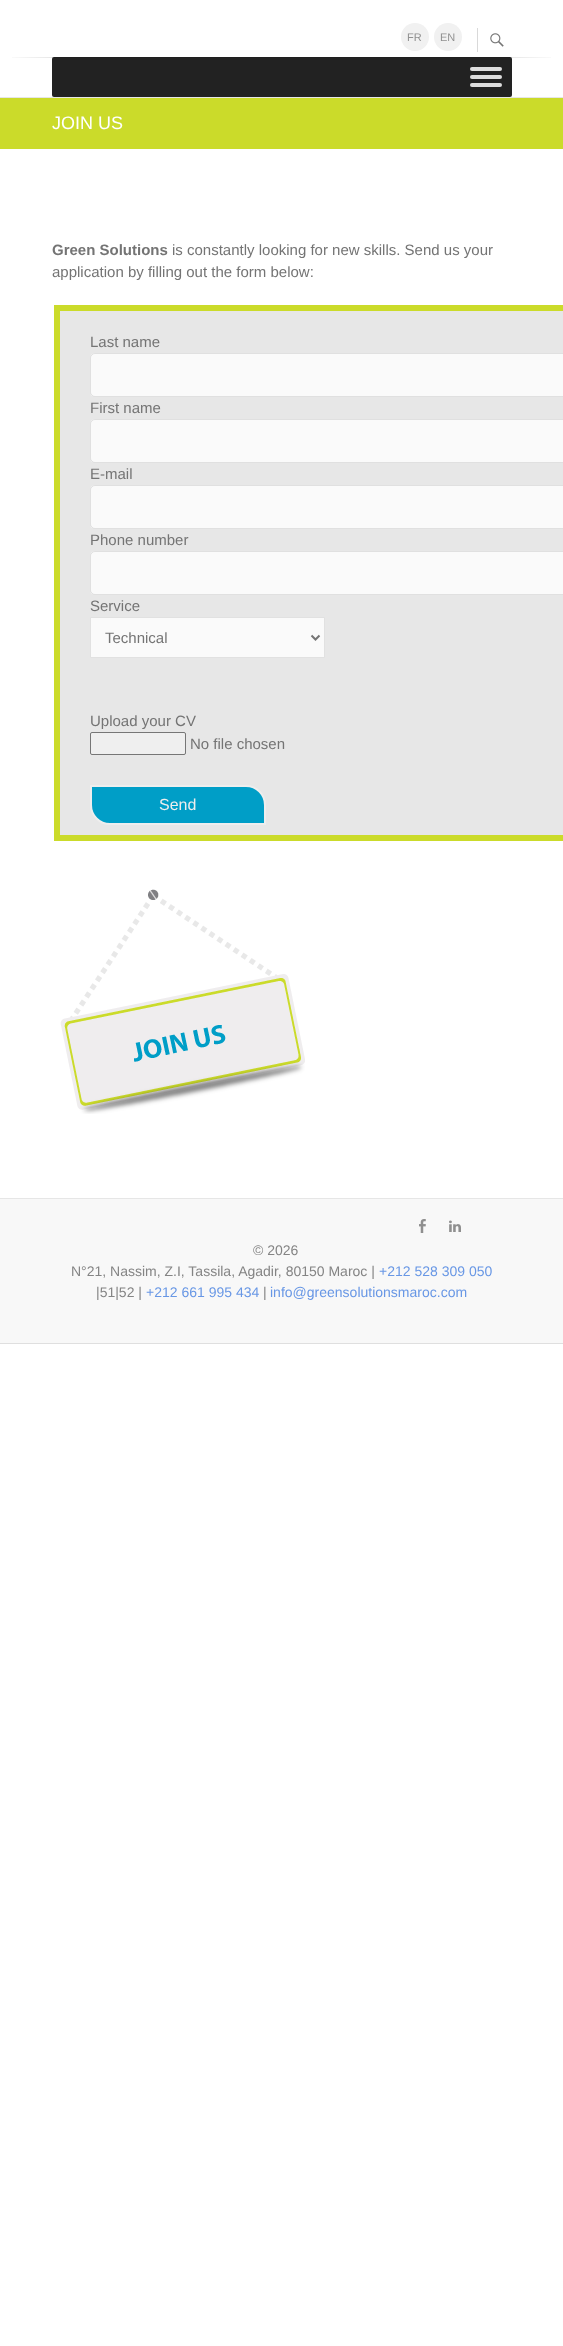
async function draw(canvas) {
	canvas.width = 563;
	canvas.height = 2346;
	const c = canvas.getContext('2d');
	c.miterLimit = 4;
	c.fontKerning = 'normal';
	async function loadImage(src) {
		const img = new Image();
		img.src = src;
		await img.decode();
		return img;
	}
	let gradient;

	c.fillStyle = '#fff';
	c.fillRect(0, 0, 563, 2346);
	c.fillStyle = '#f1f1f1';
	c.beginPath();
	c.arc(415, 37, 14, 0, 2 * Math.PI);
	c.fill();
	c.font = '11px Liberation Sans';
	c.fillStyle = '#909090';
	c.fillText('FR', 407, 41);
	c.fillStyle = '#f1f1f1';
	c.beginPath();
	c.arc(448, 37, 14, 0, 2 * Math.PI);
	c.fill();
	c.fillStyle = '#909090';
	c.fillText('EN', 440, 41);
	c.fillStyle = '#d9d9d9';
	c.fillRect(477, 28, 1, 24);
	c.drawImage(await loadImage('img1.png'), 490, 33, 14, 14);
	c.fillStyle = '#e6e6e6';
	c.fillRect(0, 97, 563, 1);
	c.fillStyle = '#222';
	c.beginPath();
	c.roundRect(52, 57, 460, 40, 2);
	c.fill();
	gradient = c.createLinearGradient(0, 58, 563, 57);
	gradient.addColorStop(0, '#00000000');
	gradient.addColorStop(0.1, '#0000001a');
	gradient.addColorStop(0.9, '#0000001a');
	gradient.addColorStop(1, '#00000000');
	c.fillStyle = gradient;
	c.fillRect(12, 57, 539, 1);
	c.fillStyle = '#ddd';
	c.beginPath();
	c.roundRect(470, 67, 32, 4, 2);
	c.fill();
	c.beginPath();
	c.roundRect(470, 75, 32, 4, 2);
	c.fill();
	c.beginPath();
	c.roundRect(470, 83, 32, 4, 2);
	c.fill();
	c.fillStyle = '#cbdb2a';
	c.fillRect(0, 98, 563, 51);
	c.font = '18px Liberation Sans';
	c.fillStyle = '#fff';
	c.fillText('JOIN US', 52, 129);
	c.font = 'bold 15px Liberation Sans';
	c.fillStyle = '#747474';
	c.fillText('Green Solutions', 52, 255);
	c.font = '15px Liberation Sans';
	c.fillText('is constantly looking for new skills. Send us your', 172, 255);
	c.fillText('application by filling out the form below:', 52, 277);
	c.fillStyle = '#e7e7e7';
	c.beginPath();
	c.rect(57, 308, 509, 530);
	c.fill();
	c.strokeStyle = '#cbdb2a';
	c.lineWidth = 6;
	c.stroke();
	c.fillStyle = '#747474';
	c.fillText('Last name', 90, 347);
	c.fillStyle = '#fafafa';
	c.beginPath();
	c.roundRect(90, 353, 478, 44, 5);
	c.fill();
	c.beginPath();
	c.roundRect(90.5, 353.5, 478, 43, 4.5);
	c.strokeStyle = '#0000001a';
	c.lineWidth = 1;
	c.stroke();
	c.fillStyle = '#747474';
	c.fillText('First name', 90, 413);
	c.fillStyle = '#fafafa';
	c.beginPath();
	c.roundRect(90, 419, 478, 44, 5);
	c.fill();
	c.beginPath();
	c.roundRect(90.5, 419.5, 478, 43, 4.5);
	c.stroke();
	c.fillStyle = '#747474';
	c.fillText('E-mail', 90, 479);
	c.fillStyle = '#fafafa';
	c.beginPath();
	c.roundRect(90, 485, 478, 44, 5);
	c.fill();
	c.beginPath();
	c.roundRect(90.5, 485.5, 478, 43, 4.5);
	c.stroke();
	c.fillStyle = '#747474';
	c.fillText('Phone number', 90, 545);
	c.fillStyle = '#fafafa';
	c.beginPath();
	c.roundRect(90, 551, 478, 44, 5);
	c.fill();
	c.beginPath();
	c.roundRect(90.5, 551.5, 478, 43, 4.5);
	c.stroke();
	c.fillStyle = '#747474';
	c.fillText('Service', 90, 611);
	c.fillStyle = '#fafafa';
	c.beginPath();
	c.rect(90.5, 617.5, 234, 40);
	c.fill();
	c.strokeStyle = '#e1e1e1';
	c.stroke();
	c.beginPath();
	c.moveTo(311.5, 635.5);
	c.lineTo(315.5, 639.5);
	c.lineTo(319.5, 635.5);
	c.strokeStyle = '#747474';
	c.lineWidth = 2;
	c.stroke();
	c.fillStyle = '#747474';
	c.fillText('Technical', 105, 643);
	c.fillText('Upload your CV', 90, 726);
	c.fillStyle = '#efefef';
	c.beginPath();
	c.roundRect(90.5, 732.5, 95, 22, 1.5);
	c.fill();
	c.strokeStyle = '#767676';
	c.lineWidth = 1;
	c.stroke();
	c.fillStyle = '#747474';
	c.fillText('No file chosen', 190, 749);
	c.fillStyle = '#009ec7';
	c.beginPath();
	c.roundRect(91, 786, 174, 38, [0, 19, 0, 19]);
	c.fill();
	c.strokeStyle = '#eee';
	c.lineWidth = 2;
	c.stroke();
	c.font = '16px Liberation Sans';
	c.fillStyle = '#eee';
	c.fillText('Send', 159, 810);
	c.drawImage(await loadImage('img2.png'), 60, 889, 245, 225);
	for (const [x, y, w, h, color] of [
		[0, 1198, 563, 1, '#e6e6e6'],
		[0, 1199, 563, 144, '#f8f8f8'],
		[0, 1343, 563, 1, '#dfdfdf'],
	]) {
		c.fillStyle = color;
		c.fillRect(x, y, w, h);
	}
	c.drawImage(await loadImage('img3.png'), 419, 1219, 7, 14);
	c.drawImage(await loadImage('img4.png'), 449, 1220, 12, 12);
	c.font = '14px Liberation Sans';
	c.fillStyle = '#848484';
	c.fillText('© 2026', 253, 1255);
	c.fillText('N°21, Nassim, Z.I, Tassila, Agadir, 80150 Maroc |', 71, 1276);
	c.fillStyle = '#6897e5';
	c.fillText('+212 528 309 050', 379, 1276);
	c.fillStyle = '#848484';
	c.fillText('|51|52 |', 96, 1297);
	c.fillStyle = '#6897e5';
	c.fillText('+212 661 995 434', 146, 1297);
	c.fillStyle = '#848484';
	c.fillText('|', 263, 1297);
	c.fillStyle = '#6897e5';
	c.fillText('info@greensolutionsmaroc.com', 270, 1297);
}

draw(document.querySelector('canvas'));
